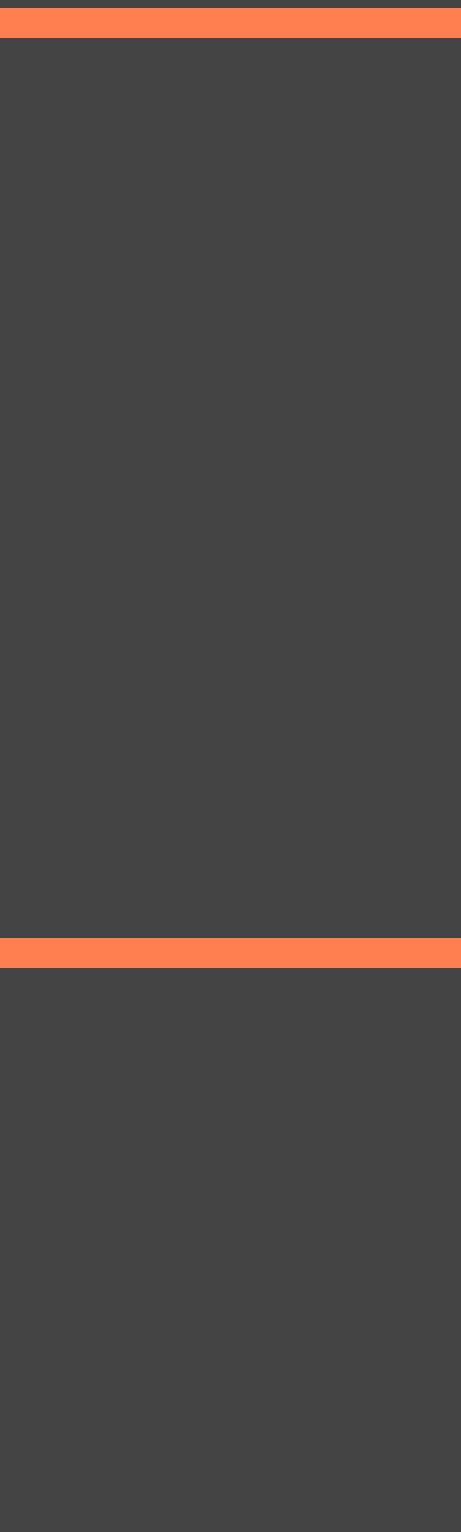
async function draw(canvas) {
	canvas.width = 461;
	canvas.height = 1532;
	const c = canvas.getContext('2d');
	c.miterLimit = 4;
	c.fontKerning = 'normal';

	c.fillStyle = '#444';
	c.fillRect(0, 0, 461, 1532);
	c.strokeStyle = '#ff7f50';
	c.lineWidth = 30;
	c.strokeRect(-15, 23, 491, 930);
}

draw(document.querySelector('canvas'));
